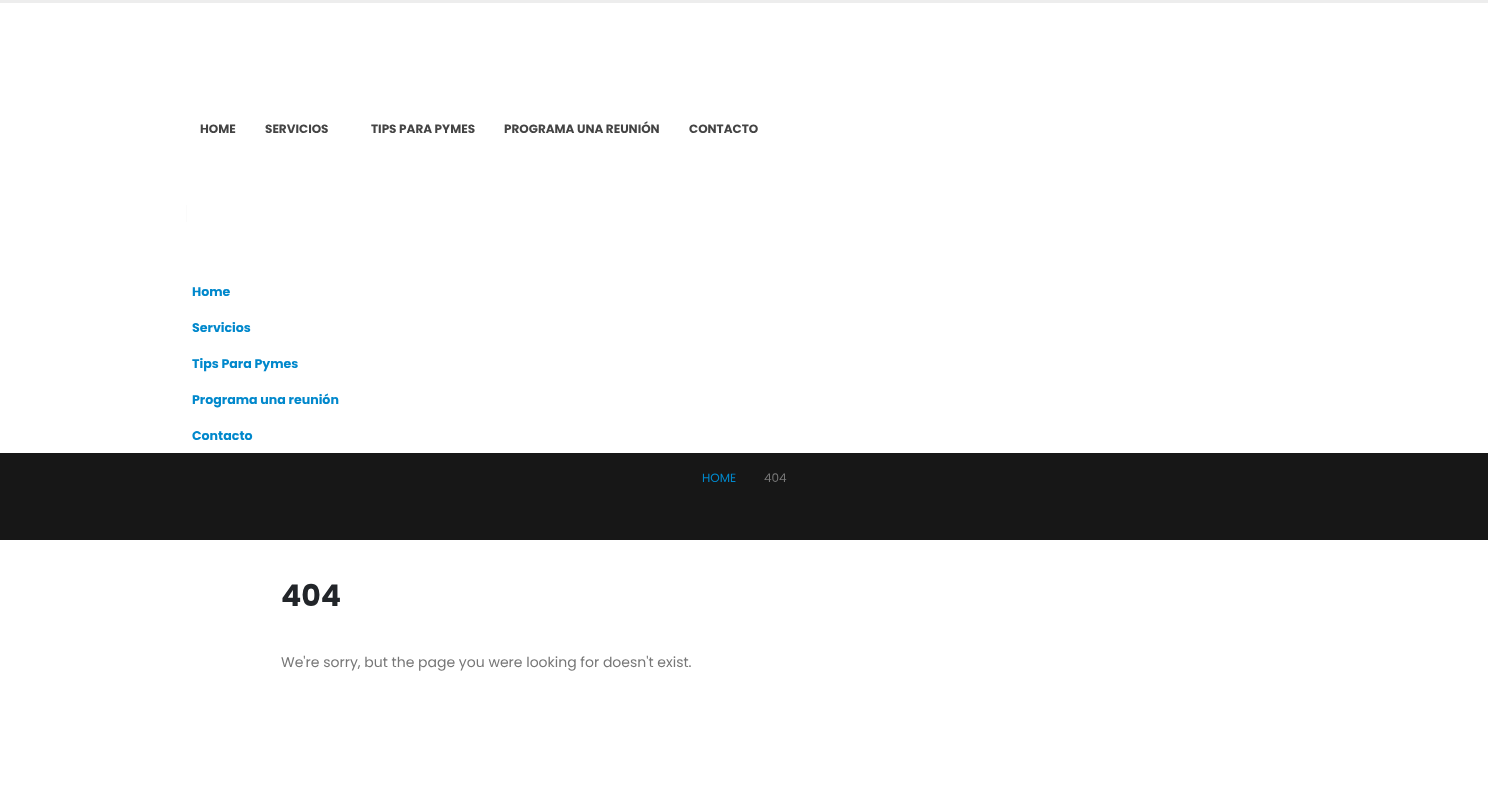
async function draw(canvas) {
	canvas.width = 1488;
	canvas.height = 793;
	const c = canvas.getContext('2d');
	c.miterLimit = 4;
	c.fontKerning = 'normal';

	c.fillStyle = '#fff';
	c.fillRect(0, 0, 1488, 793);
	c.fillStyle = '#ededed';
	c.fillRect(0, 0, 1488, 3);
	c.font = 'bold 12px Poppins';
	c.fillStyle = '#444';
	for (const [text, x, y] of [
		['HOME', 200, 133],
		['SERVICIOS', 265, 133],
		['TIPS PARA PYMES', 371, 133],
		['PROGRAMA UNA REUNIÓN', 504, 133],
		['CONTACTO', 689, 133],
	]) {
		c.fillText(text, x, y);
	}
	c.fillStyle = '#fbfbfb';
	c.fillRect(186, 205, 1, 17);
	c.font = 'bold 12.6px Poppins';
	c.fillStyle = '#08c';
	for (const [text, x, y] of [
		['Home', 192, 296],
		['Servicios', 192, 332],
		['Tips Para Pymes', 192, 368],
		['Programa una reunión', 192, 404],
		['Contacto', 192, 440],
	]) {
		c.fillText(text, x, y);
	}
	c.fillStyle = '#171717';
	c.fillRect(0, 453, 1488, 87);
	c.font = '12px Poppins';
	c.fillStyle = '#08c';
	c.fillText('HOME', 702, 482);
	c.fillStyle = '#777';
	c.fillText('404', 764, 482);
	c.font = 'bold 30px Poppins';
	c.fillStyle = '#222529';
	c.fillText('404', 281, 606);
	c.font = '14px Poppins';
	c.fillStyle = '#777';
	c.fillText('We\'re sorry, but the page you were looking for doesn\'t exist.', 281, 667);
}

draw(document.querySelector('canvas'));
